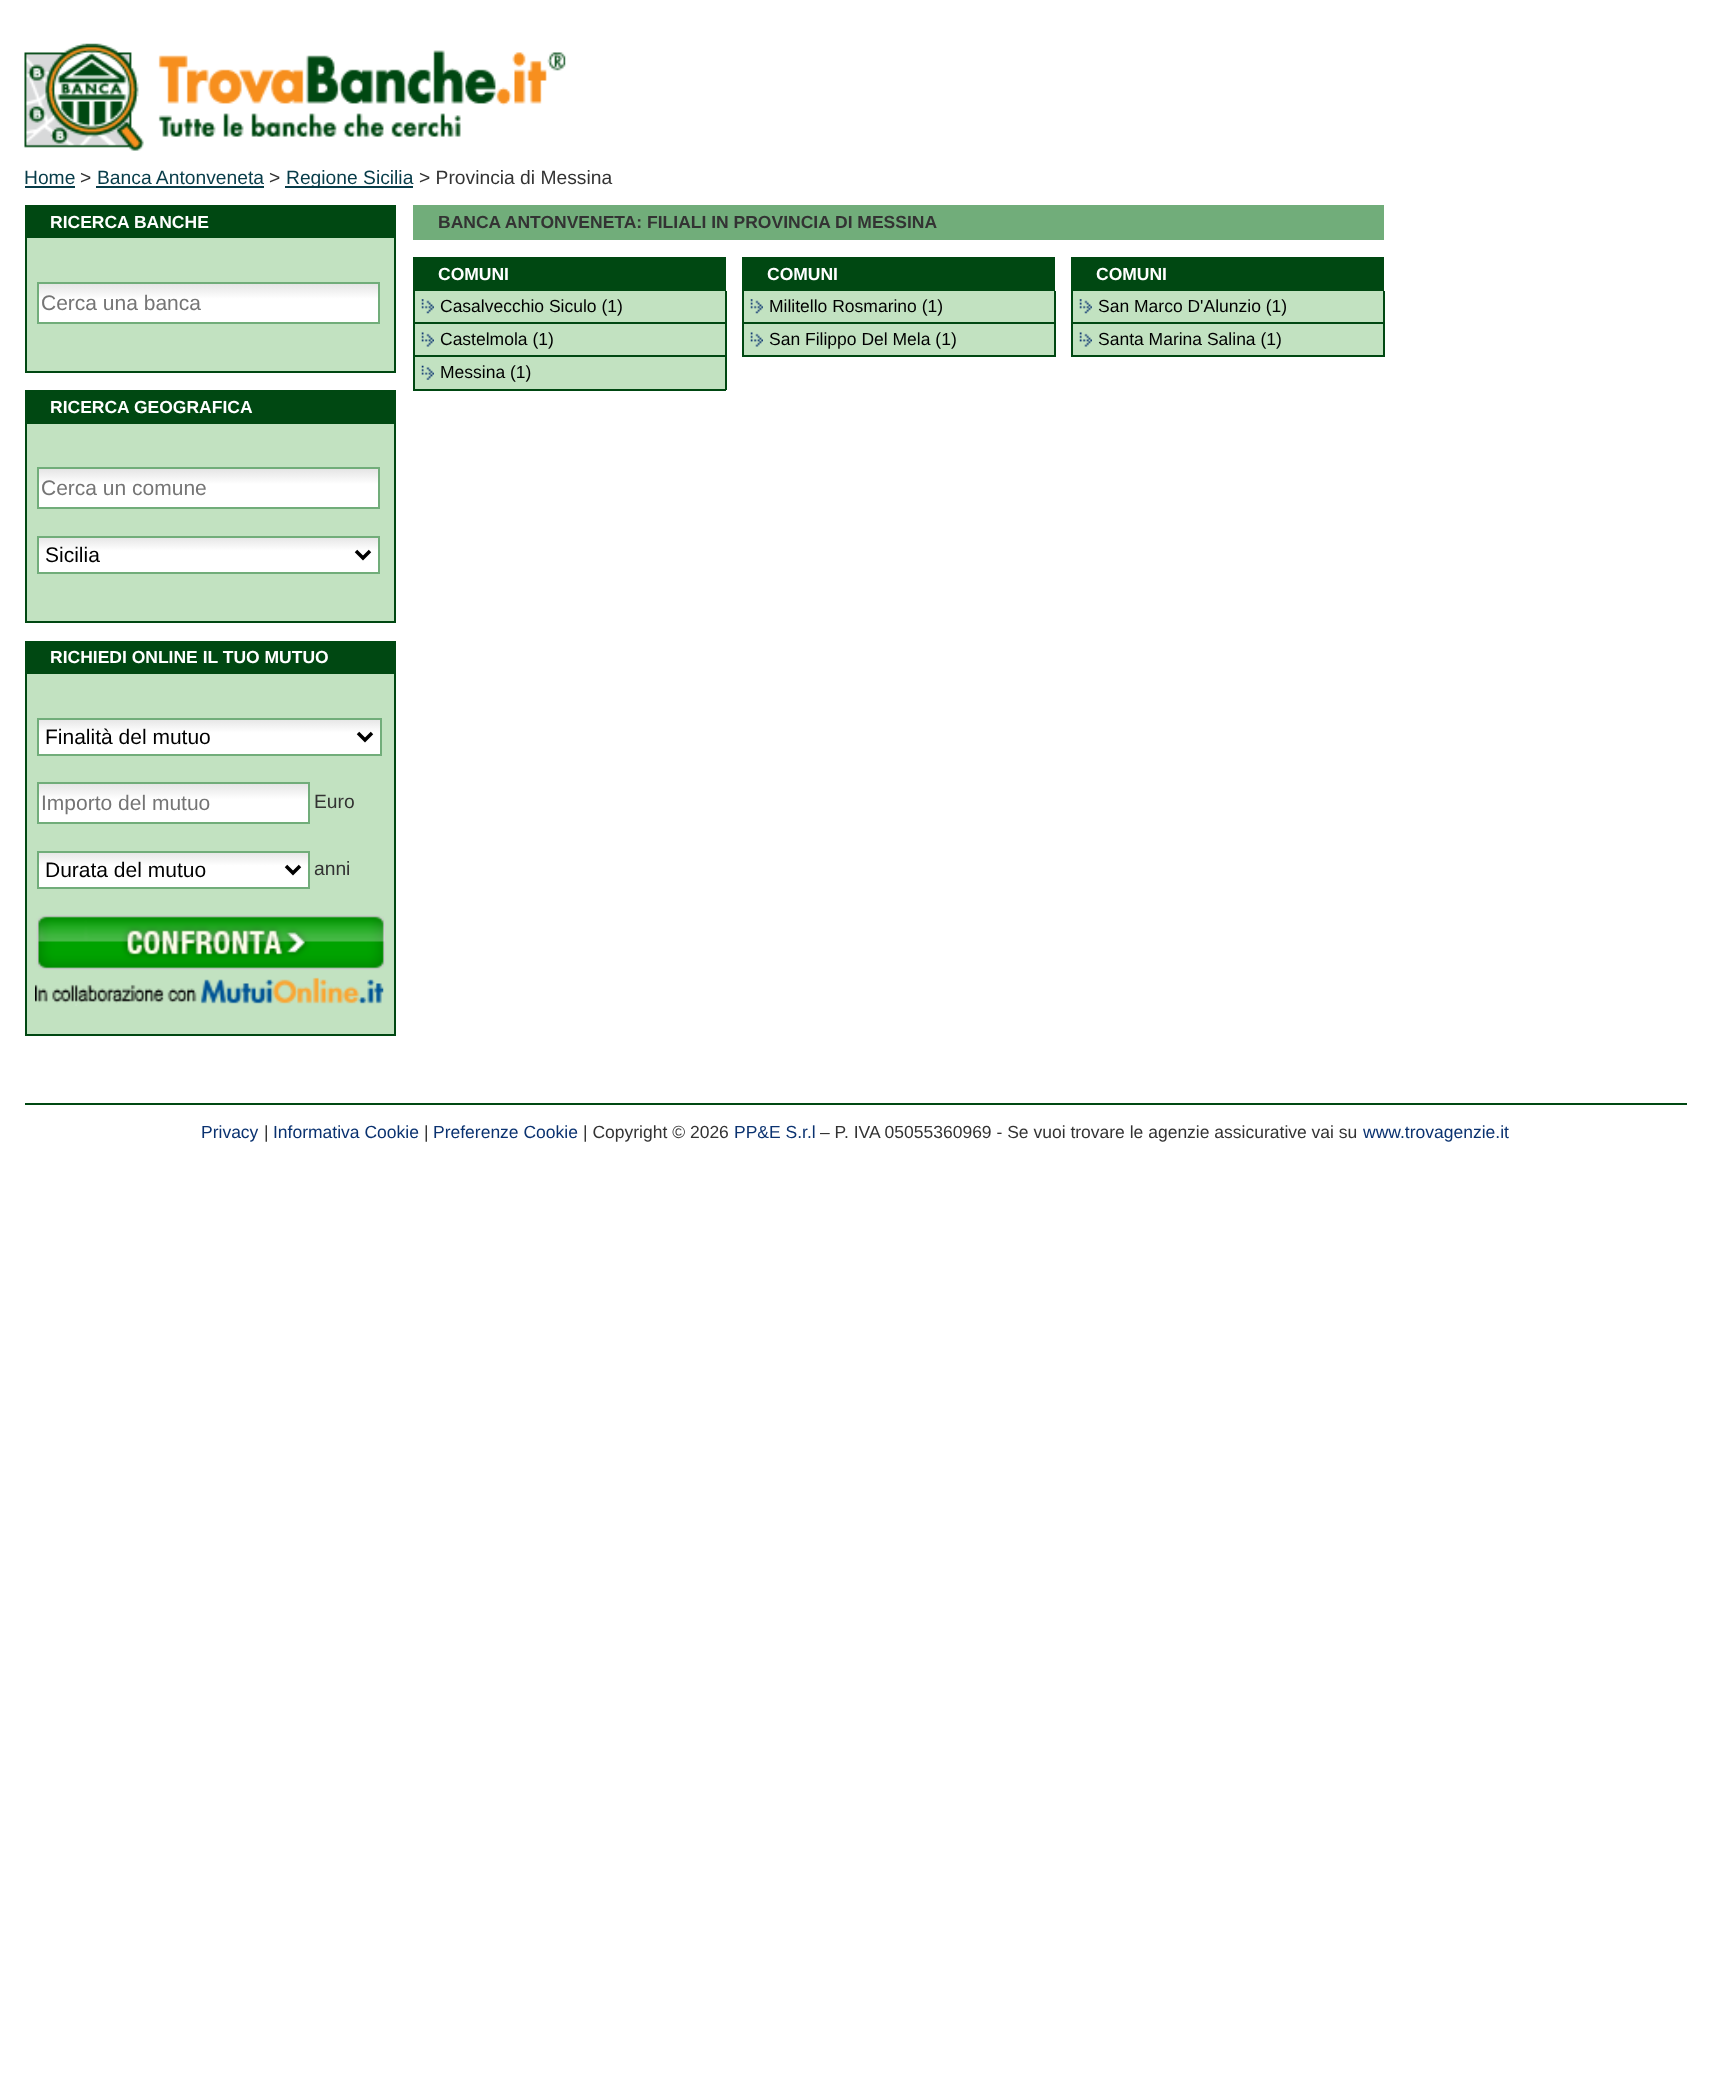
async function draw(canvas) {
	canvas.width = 1709;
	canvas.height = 2095;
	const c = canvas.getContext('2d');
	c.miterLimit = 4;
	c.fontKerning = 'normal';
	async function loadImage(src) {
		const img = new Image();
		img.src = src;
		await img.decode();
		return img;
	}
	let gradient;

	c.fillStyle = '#fff';
	c.fillRect(0, 0, 1709, 2095);
	c.drawImage(await loadImage('img1.png'), 24, 43, 542, 108);
	c.font = '19.25px Liberation Sans';
	c.fillStyle = '#073c49';
	c.fillText('Home', 24, 184);
	c.fillRect(25, 186, 50, 2);
	c.fillStyle = '#333';
	c.fillText('>', 80, 184);
	c.fillStyle = '#073c49';
	c.fillText('Banca Antonveneta', 97, 184);
	c.fillRect(96, 186, 168, 2);
	c.fillStyle = '#333';
	c.fillText('>', 269, 184);
	c.fillStyle = '#073c49';
	c.fillRect(285, 186, 128, 2);
	c.fillText('Regione Sicilia', 286, 184);
	c.fillStyle = '#333';
	c.fillText('> Provincia di Messina', 419, 184);
	c.fillStyle = '#004812';
	c.fillRect(25, 205, 371, 33);
	c.font = 'bold 17.5px Liberation Sans';
	c.fillStyle = '#fff';
	c.fillText('RICERCA BANCHE', 50, 228);
	for (const [x, y, w, h, color] of [
		[27, 238, 367, 133, '#c2e2c1'],
		[394, 238, 2, 135, '#004812'],
		[25, 371, 371, 2, '#004812'],
		[25, 238, 2, 135, '#004812'],
	]) {
		c.fillStyle = color;
		c.fillRect(x, y, w, h);
	}
	gradient = c.createLinearGradient(208, 284, 208, 322);
	gradient.addColorStop(0, '#e5e5e5');
	gradient.addColorStop(0.39, '#fff');
	c.fillStyle = gradient;
	c.fillRect(39, 284, 339, 38);
	c.strokeStyle = '#71ad7a';
	c.lineWidth = 2;
	c.strokeRect(38, 283, 341, 40);
	c.font = '21px Liberation Sans';
	c.fillStyle = '#757575';
	c.fillText('Cerca una banca', 41, 310);
	c.fillStyle = '#004812';
	c.fillRect(25, 390, 371, 34);
	c.font = 'bold 17.5px Liberation Sans';
	c.fillStyle = '#fff';
	c.fillText('RICERCA GEOGRAFICA', 50, 413);
	for (const [x, y, w, h, color] of [
		[27, 424, 367, 197, '#c2e2c1'],
		[394, 424, 2, 199, '#004812'],
		[25, 621, 371, 2, '#004812'],
		[25, 424, 2, 199, '#004812'],
	]) {
		c.fillStyle = color;
		c.fillRect(x, y, w, h);
	}
	gradient = c.createLinearGradient(208, 469, 208, 508);
	gradient.addColorStop(0, '#e5e5e5');
	gradient.addColorStop(0.39, '#fff');
	c.fillStyle = gradient;
	c.fillRect(39, 469, 339, 38);
	c.strokeRect(38, 468, 341, 40);
	c.font = '21px Liberation Sans';
	c.fillStyle = '#757575';
	c.fillText('Cerca un comune', 41, 495);
	gradient = c.createLinearGradient(208, 537, 208, 572);
	gradient.addColorStop(0, '#e5e5e5');
	gradient.addColorStop(0.39, '#fff');
	c.fillStyle = gradient;
	c.fillRect(39, 538, 339, 34);
	c.strokeRect(38, 537, 341, 36);
	c.beginPath();
	c.moveTo(356, 551);
	c.lineTo(363, 558);
	c.lineTo(370, 551);
	c.strokeStyle = '#000';
	c.lineWidth = 3.5;
	c.stroke();
	c.fillStyle = '#000';
	c.fillText('Sicilia', 45, 562);
	c.fillStyle = '#004812';
	c.fillRect(25, 641, 371, 33);
	c.font = 'bold 17.5px Liberation Sans';
	c.fillStyle = '#fff';
	c.fillText('RICHIEDI ONLINE IL TUO MUTUO', 50, 663);
	for (const [x, y, w, h, color] of [
		[27, 674, 367, 360, '#c2e2c1'],
		[394, 674, 2, 362, '#004812'],
		[25, 1034, 371, 2, '#004812'],
		[25, 674, 2, 362, '#004812'],
	]) {
		c.fillStyle = color;
		c.fillRect(x, y, w, h);
	}
	gradient = c.createLinearGradient(209, 719, 209, 754);
	gradient.addColorStop(0, '#e5e5e5');
	gradient.addColorStop(0.39, '#fff');
	c.fillStyle = gradient;
	c.fillRect(39, 720, 341, 34);
	c.strokeStyle = '#71ad7a';
	c.lineWidth = 2;
	c.strokeRect(38, 719, 343, 36);
	c.beginPath();
	c.moveTo(358, 733);
	c.lineTo(365, 740);
	c.lineTo(372, 733);
	c.strokeStyle = '#000';
	c.lineWidth = 3.5;
	c.stroke();
	c.font = '21px Liberation Sans';
	c.fillStyle = '#000';
	c.fillText('Finalità del mutuo', 45, 744);
	gradient = c.createLinearGradient(173, 784, 173, 823);
	gradient.addColorStop(0, '#e5e5e5');
	gradient.addColorStop(0.39, '#fff');
	c.fillStyle = gradient;
	c.fillRect(39, 784, 269, 38);
	c.strokeStyle = '#71ad7a';
	c.lineWidth = 2;
	c.strokeRect(38, 783, 271, 40);
	c.fillStyle = '#757575';
	c.fillText('Importo del mutuo', 41, 810);
	c.font = '19.25px Liberation Sans';
	c.fillStyle = '#333';
	c.fillText('Euro', 314, 808);
	gradient = c.createLinearGradient(173, 852, 173, 887);
	gradient.addColorStop(0, '#e5e5e5');
	gradient.addColorStop(0.39, '#fff');
	c.fillStyle = gradient;
	c.fillRect(39, 853, 269, 34);
	c.strokeRect(38, 852, 271, 36);
	c.beginPath();
	c.moveTo(286, 866);
	c.lineTo(293, 873);
	c.lineTo(300, 866);
	c.strokeStyle = '#000';
	c.lineWidth = 3.5;
	c.stroke();
	c.font = '21px Liberation Sans';
	c.fillStyle = '#000';
	c.fillText('Durata del mutuo', 45, 877);
	c.font = '19.25px Liberation Sans';
	c.fillStyle = '#333';
	c.fillText('anni', 314, 875);
	c.drawImage(await loadImage('img2.png'), 36, 915, 349, 55);
	c.drawImage(await loadImage('img3.png'), 35, 977, 349, 29);
	c.fillStyle = '#71ad7a';
	c.fillRect(413, 205, 971, 35);
	c.font = 'bold 17.5px Liberation Sans';
	c.fillStyle = '#333';
	c.fillText('BANCA ANTONVENETA: FILIALI IN PROVINCIA DI MESSINA', 438, 228);
	c.fillStyle = '#004812';
	c.fillRect(413, 257, 313, 34);
	c.fillStyle = '#fff';
	c.fillText('COMUNI', 438, 280);
	c.fillStyle = '#c2e2c1';
	c.fillRect(415, 291, 310, 31);
	c.drawImage(await loadImage('img4.png'), 421, 299, 13, 15);
	for (const [x, y, w, h, color] of [
		[725, 291, 2, 99, '#004812'],
		[413, 322, 313, 2, '#004812'],
		[413, 291, 2, 33, '#004812'],
	]) {
		c.fillStyle = color;
		c.fillRect(x, y, w, h);
	}
	c.font = '17.5px Liberation Sans';
	c.fillStyle = '#000';
	c.fillText('Casalvecchio Siculo (1)', 440, 312);
	c.fillStyle = '#c2e2c1';
	c.fillRect(415, 324, 310, 31);
	c.drawImage(await loadImage('img5.png'), 421, 332, 13, 15);
	c.fillStyle = '#004812';
	c.fillRect(413, 355, 313, 2);
	c.fillRect(413, 324, 2, 33);
	c.fillStyle = '#000';
	c.fillText('Castelmola (1)', 440, 345);
	c.fillStyle = '#c2e2c1';
	c.fillRect(415, 357, 310, 32);
	c.drawImage(await loadImage('img6.png'), 421, 365, 13, 15);
	c.fillStyle = '#004812';
	c.fillRect(413, 389, 313, 2);
	c.fillRect(413, 357, 2, 33);
	c.fillStyle = '#000';
	c.fillText('Messina (1)', 440, 378);
	c.fillStyle = '#004812';
	c.fillRect(742, 257, 313, 34);
	c.font = 'bold 17.5px Liberation Sans';
	c.fillStyle = '#fff';
	c.fillText('COMUNI', 767, 280);
	c.fillStyle = '#c2e2c1';
	c.fillRect(744, 291, 310, 31);
	c.drawImage(await loadImage('img4.png'), 750, 299, 13, 15);
	for (const [x, y, w, h, color] of [
		[1054, 291, 2, 66, '#004812'],
		[742, 322, 313, 2, '#004812'],
		[742, 291, 2, 33, '#004812'],
	]) {
		c.fillStyle = color;
		c.fillRect(x, y, w, h);
	}
	c.font = '17.5px Liberation Sans';
	c.fillStyle = '#000';
	c.fillText('Militello Rosmarino (1)', 769, 312);
	c.fillStyle = '#c2e2c1';
	c.fillRect(744, 324, 310, 31);
	c.drawImage(await loadImage('img5.png'), 750, 332, 13, 15);
	c.fillStyle = '#004812';
	c.fillRect(742, 355, 313, 2);
	c.fillRect(742, 324, 2, 33);
	c.fillStyle = '#000';
	c.fillText('San Filippo Del Mela (1)', 769, 345);
	c.fillStyle = '#004812';
	c.fillRect(1071, 257, 313, 34);
	c.font = 'bold 17.5px Liberation Sans';
	c.fillStyle = '#fff';
	c.fillText('COMUNI', 1096, 280);
	c.fillStyle = '#c2e2c1';
	c.fillRect(1073, 291, 310, 31);
	c.drawImage(await loadImage('img7.png'), 1079, 299, 13, 15);
	for (const [x, y, w, h, color] of [
		[1383, 291, 2, 66, '#004812'],
		[1071, 322, 313, 2, '#004812'],
		[1071, 291, 2, 33, '#004812'],
	]) {
		c.fillStyle = color;
		c.fillRect(x, y, w, h);
	}
	c.font = '17.5px Liberation Sans';
	c.fillStyle = '#000';
	c.fillText('San Marco D\'Alunzio (1)', 1098, 312);
	c.fillStyle = '#c2e2c1';
	c.fillRect(1073, 324, 310, 31);
	c.drawImage(await loadImage('img8.png'), 1079, 332, 13, 15);
	c.fillStyle = '#004812';
	c.fillRect(1071, 355, 313, 2);
	c.fillRect(1071, 324, 2, 33);
	c.fillStyle = '#000';
	c.fillText('Santa Marina Salina (1)', 1098, 345);
	c.fillStyle = '#004812';
	c.fillRect(25, 1103, 1662, 2);
	c.fillStyle = '#0a3270';
	c.fillText('Privacy', 201, 1138);
	c.fillStyle = '#333';
	c.fillText('|', 264, 1138);
	c.fillStyle = '#0a3270';
	c.fillText('Informativa Cookie', 273, 1138);
	c.fillStyle = '#333';
	c.fillText('|', 424, 1138);
	c.fillStyle = '#0a3270';
	c.fillText('Preferenze Cookie', 433, 1138);
	c.fillStyle = '#333';
	c.fillText('| Copyright © 2026', 583, 1138);
	c.fillStyle = '#0a3270';
	c.fillText('PP&E S.r.l', 734, 1138);
	c.fillStyle = '#333';
	c.fillText('– P. IVA 05055360969 - Se vuoi trovare le agenzie assicurative vai su', 820, 1138);
	c.fillStyle = '#0a3270';
	c.fillText('www.trovagenzie.it', 1363, 1138);
}

draw(document.querySelector('canvas'));
